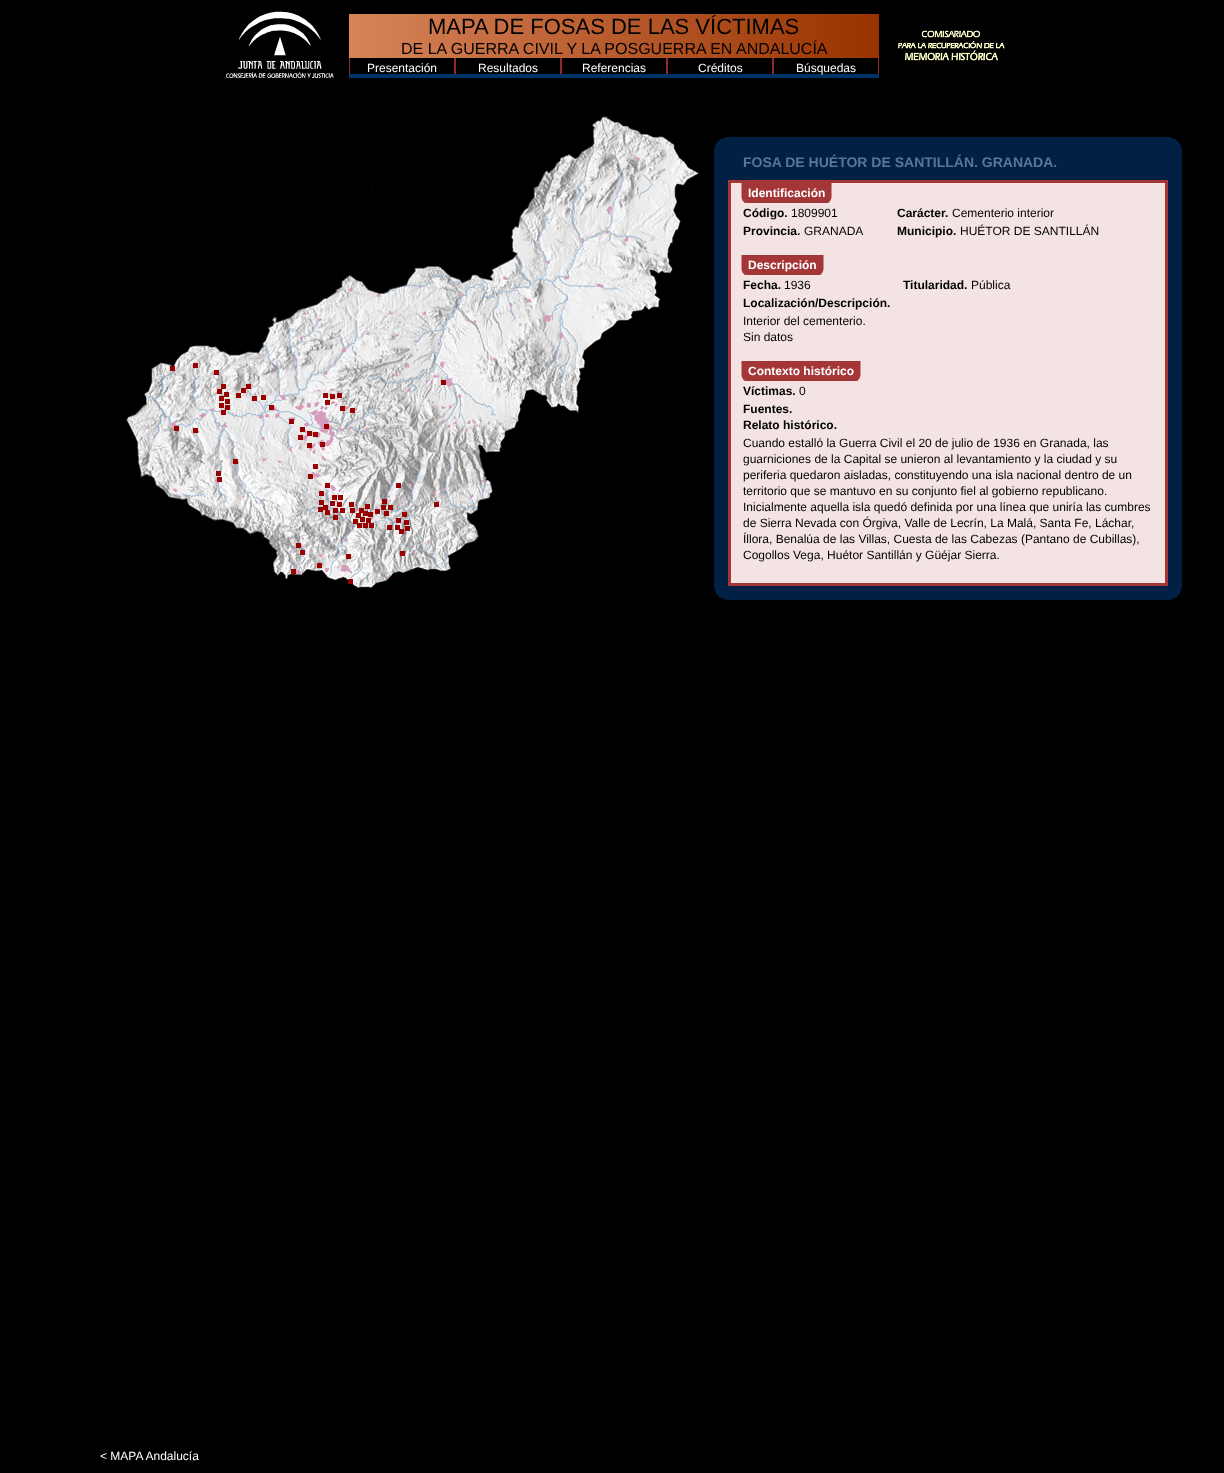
async function draw(canvas) {
	canvas.width = 1224;
	canvas.height = 1473;
	const c = canvas.getContext('2d');
	c.miterLimit = 4;
	c.fontKerning = 'normal';
	async function loadImage(src) {
		const img = new Image();
		img.src = src;
		await img.decode();
		return img;
	}

	c.fillStyle = '#000';
	c.fillRect(0, 0, 1224, 1473);
	c.drawImage(await loadImage('img1.png'), 226, 11, 108, 67);
	c.drawImage(await loadImage('img2.png'), 349, 14, 530, 44);
	c.font = '22px Liberation Sans';
	c.fillText('MAPA DE FOSAS DE LAS VÍCTIMAS', 428, 34);
	c.font = '16px Liberation Sans';
	c.fillText('DE LA GUERRA CIVIL Y LA POSGUERRA EN ANDALUCÍA', 401, 54);
	c.drawImage(await loadImage('img3.png'), 349, 58, 106, 20);
	c.font = '12px Liberation Sans';
	c.fillStyle = '#fff';
	c.fillText('Presentación', 367, 72);
	c.drawImage(await loadImage('img3.png'), 455, 58, 106, 20);
	c.fillText('Resultados', 478, 72);
	c.drawImage(await loadImage('img3.png'), 561, 58, 106, 20);
	c.fillText('Referencias', 582, 72);
	c.drawImage(await loadImage('img3.png'), 667, 58, 106, 20);
	c.fillText('Créditos', 698, 72);
	c.drawImage(await loadImage('img3.png'), 773, 58, 106, 20);
	c.fillText('Búsquedas', 796, 72);
	c.drawImage(await loadImage('img4.png'), 898, 30, 107, 31);
	c.drawImage(await loadImage('img5.png'), 126, 116, 574, 473);
	for (const [x, y, w, h, color] of [
		[193, 363, 5, 5, '#900'],
		[170, 366, 5, 5, '#900'],
		[214, 370, 5, 5, '#900'],
		[441, 380, 5, 5, '#900'],
		[221, 384, 5, 5, '#900'],
		[246, 384, 5, 5, '#900'],
		[217, 389, 5, 5, '#900'],
		[241, 388, 5, 5, '#900'],
		[219, 396, 5, 5, '#900'],
		[224, 392, 5, 5, '#900'],
		[236, 393, 5, 5, '#900'],
		[252, 396, 5, 5, '#900'],
		[261, 395, 5, 5, '#900'],
		[323, 393, 5, 5, '#900'],
		[330, 394, 5, 5, '#900'],
		[337, 393, 5, 5, '#900'],
		[225, 399, 5, 5, '#900'],
		[325, 400, 5, 5, '#900'],
		[219, 403, 5, 5, '#900'],
		[225, 405, 5, 5, '#900'],
		[269, 405, 5, 5, '#900'],
		[340, 406, 5, 5, '#900'],
		[350, 408, 5, 5, '#900'],
		[221, 410, 5, 5, '#900'],
		[289, 419, 5, 5, '#900'],
		[174, 426, 5, 5, '#900'],
		[193, 428, 5, 5, '#900'],
		[300, 427, 5, 5, '#900'],
		[324, 424, 5, 5, '#900'],
		[307, 431, 5, 5, '#900'],
		[313, 432, 5, 5, '#900'],
		[298, 435, 5, 5, '#900'],
		[307, 443, 5, 5, '#900'],
		[320, 442, 5, 5, '#900'],
		[233, 459, 5, 5, '#900'],
		[313, 464, 5, 5, '#900'],
		[216, 471, 5, 5, '#900'],
		[308, 474, 5, 5, '#900'],
		[217, 477, 5, 5, '#900'],
		[325, 483, 5, 5, '#900'],
		[396, 483, 5, 5, '#900'],
		[319, 491, 5, 5, '#900'],
		[332, 495, 5, 5, '#900'],
		[338, 495, 5, 5, '#900'],
		[319, 500, 5, 5, '#900'],
		[323, 505, 5, 5, '#900'],
		[330, 501, 5, 5, '#900'],
		[337, 502, 5, 5, '#900'],
		[349, 502, 5, 5, '#900'],
		[365, 504, 5, 5, '#900'],
		[382, 499, 5, 5, '#900'],
		[434, 502, 5, 5, '#900'],
		[318, 507, 5, 5, '#900'],
		[325, 510, 5, 5, '#900'],
		[333, 508, 5, 5, '#900'],
		[340, 508, 5, 5, '#900'],
		[350, 508, 5, 5, '#900'],
		[360, 517, 5, 5, '#900'],
		[356, 513, 5, 5, '#900'],
		[359, 508, 5, 5, '#900'],
		[363, 511, 5, 5, '#900'],
		[368, 512, 5, 5, '#900'],
		[375, 509, 5, 5, '#900'],
		[381, 505, 5, 5, '#900'],
		[384, 511, 5, 5, '#900'],
		[388, 505, 5, 5, '#900'],
		[402, 512, 5, 5, '#900'],
		[333, 515, 5, 5, '#900'],
		[353, 519, 5, 5, '#900'],
		[366, 518, 5, 5, '#900'],
		[396, 518, 5, 5, '#900'],
		[404, 520, 5, 5, '#900'],
		[357, 523, 5, 5, '#900'],
		[363, 523, 5, 5, '#900'],
		[369, 523, 5, 5, '#900'],
		[387, 525, 5, 5, '#900'],
		[395, 525, 5, 5, '#900'],
		[405, 526, 5, 5, '#900'],
		[399, 529, 5, 5, '#900'],
		[296, 543, 5, 5, '#900'],
		[300, 550, 5, 5, '#900'],
		[400, 551, 5, 5, '#900'],
		[346, 554, 5, 5, '#900'],
		[317, 563, 5, 5, '#900'],
		[291, 569, 5, 5, '#900'],
		[348, 579, 5, 5, '#900'],
	]) {
		c.fillStyle = color;
		c.fillRect(x, y, w, h);
	}
	c.drawImage(await loadImage('img6.png'), 714, 137, 14, 14);
	c.fillStyle = '#002143';
	c.fillRect(728, 137, 440, 14);
	c.drawImage(await loadImage('img7.png'), 1168, 137, 14, 14);
	c.fillRect(714, 151, 468, 29);
	c.font = 'bold 14px Liberation Sans';
	c.fillStyle = '#567799';
	c.fillText('FOSA DE HUÉTOR DE SANTILLÁN. GRANADA.', 743, 167);
	c.fillStyle = '#002143';
	c.fillRect(714, 180, 14, 406);
	c.fillStyle = '#f3e3e3';
	c.beginPath();
	c.rect(729.5, 181.5, 437, 403);
	c.fill();
	c.strokeStyle = '#a53637';
	c.lineWidth = 3;
	c.stroke();
	c.drawImage(await loadImage('img8.png'), 741, 183, 4, 20);
	c.fillStyle = '#a53637';
	c.fillRect(745, 183, 83, 20);
	c.font = 'bold 12px Liberation Sans';
	c.fillStyle = '#fff';
	c.fillText('Identificación', 748, 197);
	c.drawImage(await loadImage('img9.png'), 828, 183, 4, 20);
	c.fillStyle = '#000';
	c.fillText('Código.', 743, 217);
	c.font = '12px Liberation Sans';
	c.fillText('1809901', 791, 217);
	c.font = 'bold 12px Liberation Sans';
	c.fillText('Carácter.', 897, 217);
	c.font = '12px Liberation Sans';
	c.fillText('Cementerio interior', 952, 217);
	c.font = 'bold 12px Liberation Sans';
	c.fillText('Provincia.', 743, 235);
	c.font = '12px Liberation Sans';
	c.fillText('GRANADA', 804, 235);
	c.font = 'bold 12px Liberation Sans';
	c.fillText('Municipio.', 897, 235);
	c.font = '12px Liberation Sans';
	c.fillText('HUÉTOR DE SANTILLÁN', 960, 235);
	c.drawImage(await loadImage('img8.png'), 741, 255, 4, 20);
	c.fillStyle = '#a53637';
	c.fillRect(745, 255, 75, 20);
	c.font = 'bold 12px Liberation Sans';
	c.fillStyle = '#fff';
	c.fillText('Descripción', 748, 269);
	c.drawImage(await loadImage('img9.png'), 820, 255, 4, 20);
	c.fillStyle = '#000';
	c.fillText('Fecha.', 743, 289);
	c.font = '12px Liberation Sans';
	c.fillText('1936', 784, 289);
	c.font = 'bold 12px Liberation Sans';
	c.fillText('Titularidad.', 903, 289);
	c.font = '12px Liberation Sans';
	c.fillText('Pública', 971, 289);
	c.font = 'bold 12px Liberation Sans';
	c.fillText('Localización/Descripción.', 743, 307);
	c.font = '12px Liberation Sans';
	c.fillText('Interior del cementerio.', 743, 325);
	c.fillText('Sin datos', 743, 341);
	c.drawImage(await loadImage('img8.png'), 741, 361, 4, 20);
	c.fillStyle = '#a53637';
	c.fillRect(745, 361, 112, 20);
	c.font = 'bold 12px Liberation Sans';
	c.fillStyle = '#fff';
	c.fillText('Contexto histórico', 748, 375);
	c.drawImage(await loadImage('img9.png'), 857, 361, 4, 20);
	c.fillStyle = '#000';
	c.fillText('Víctimas.', 743, 395);
	c.font = '12px Liberation Sans';
	c.fillText('0', 799, 395);
	c.font = 'bold 12px Liberation Sans';
	c.fillText('Fuentes.', 743, 413);
	c.fillText('Relato histórico.', 743, 429);
	c.font = '12px Liberation Sans';
	for (const [text, x, y] of [
		['Cuando estalló la Guerra Civil el 20 de julio de 1936 en Granada, las', 743, 447],
		['guarniciones de la Capital se unieron al levantamiento y la ciudad y su', 743, 463],
		['periferia quedaron aisladas, constituyendo una isla nacional dentro de un', 743, 479],
		['territorio que se mantuvo en su conjunto fiel al gobierno republicano.', 743, 495],
		['Inicialmente aquella isla quedó definida por una línea que uniría las cumbres', 743, 511],
		['de Sierra Nevada con Órgiva, Valle de Lecrín, La Malá, Santa Fe, Láchar,', 743, 527],
		['Íllora, Benalúa de las Villas, Cuesta de las Cabezas (Pantano de Cubillas),', 743, 543],
		['Cogollos Vega, Huétor Santillán y Güéjar Sierra.', 743, 559],
	]) {
		c.fillText(text, x, y);
	}
	c.fillStyle = '#002143';
	c.fillRect(1168, 180, 14, 406);
	c.drawImage(await loadImage('img10.png'), 714, 586, 14, 14);
	c.fillRect(728, 586, 440, 14);
	c.drawImage(await loadImage('img11.png'), 1168, 586, 14, 14);
	c.fillStyle = '#fff';
	c.fillText('< MAPA Andalucía', 100, 1460);
}

draw(document.querySelector('canvas'));
